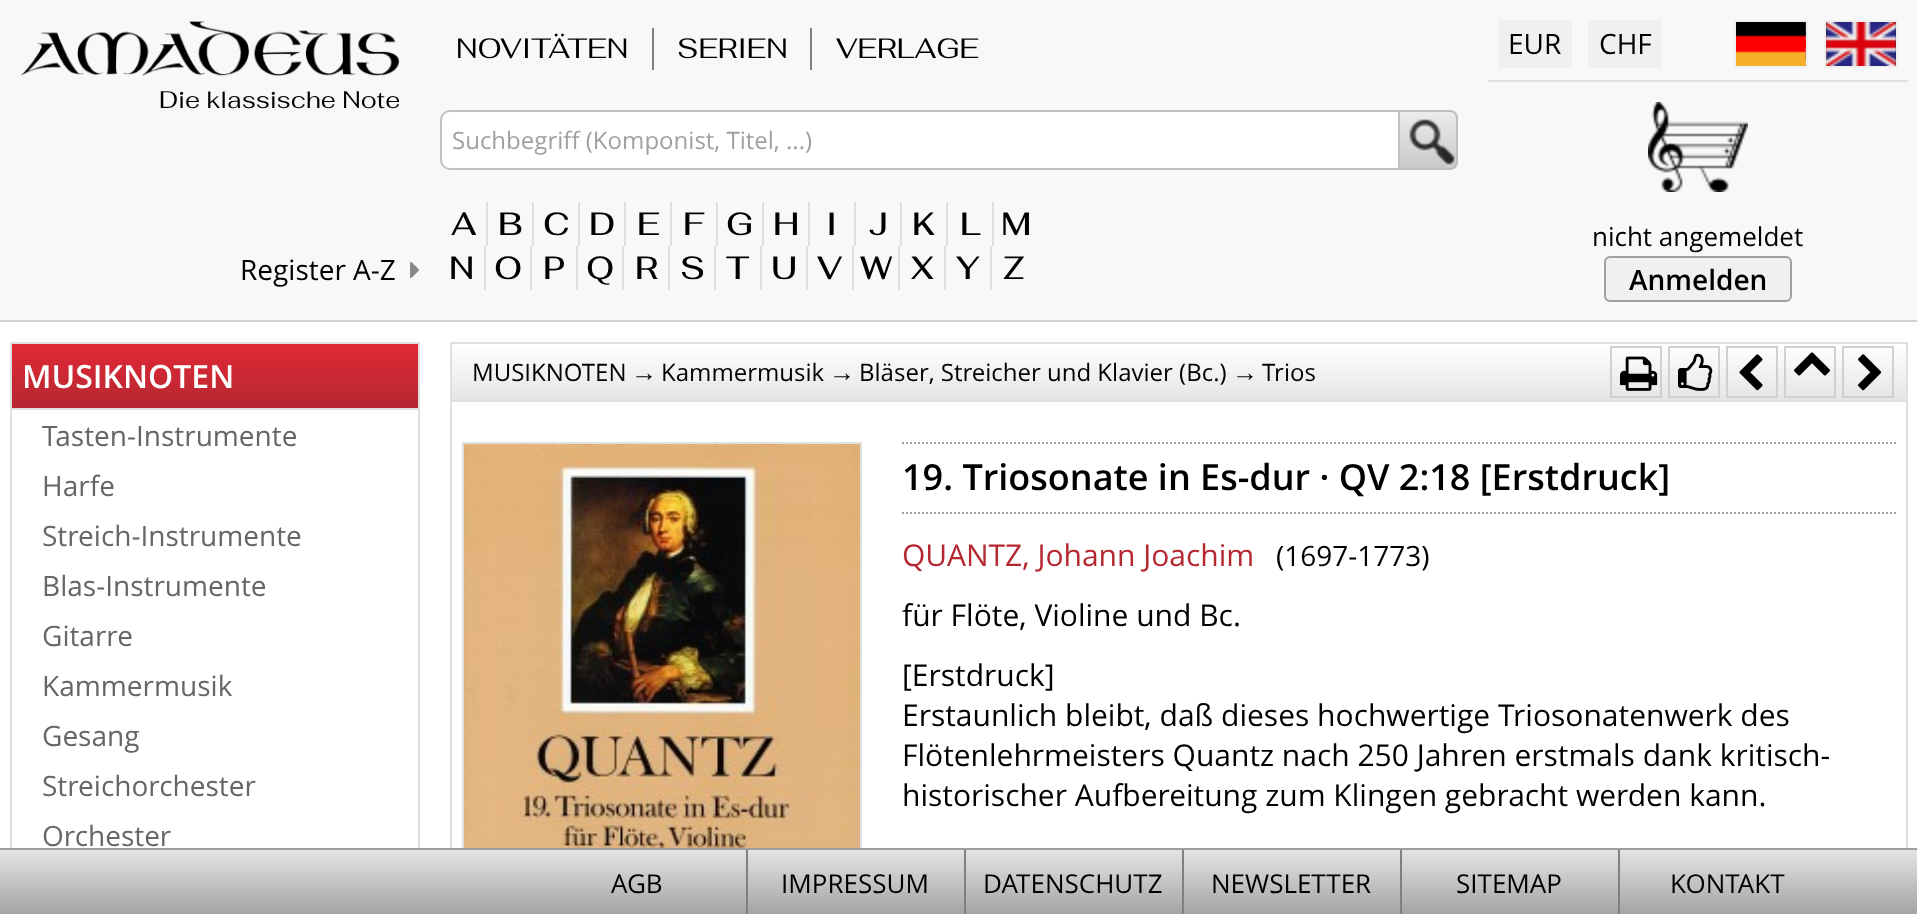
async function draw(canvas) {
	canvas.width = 1917;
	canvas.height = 914;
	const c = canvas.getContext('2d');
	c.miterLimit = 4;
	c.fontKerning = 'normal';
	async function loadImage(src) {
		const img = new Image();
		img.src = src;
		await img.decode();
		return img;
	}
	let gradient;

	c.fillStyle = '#fff';
	c.fillRect(0, 0, 1917, 914);
	c.fillStyle = '#f8f8f8';
	c.fillRect(0, 0, 1917, 320);
	c.fillStyle = '#d0d0d0';
	c.fillRect(0, 320, 1917, 2);
	c.drawImage(await loadImage('img1.png'), 21, 21, 379, 55);
	c.font = '24px Fahkwang';
	c.fillStyle = '#000';
	c.fillText('Die klassische Note', 159, 108);
	c.font = '28px Open Sans';
	c.fillText('Register A-Z', 240, 280);
	c.drawImage(await loadImage('img2.png'), 410, 262, 9, 16);
	c.font = '28px Fahkwang';
	c.fillText('NOVITÄTEN', 456, 58);
	c.fillStyle = '#808080';
	c.fillRect(652, 28, 2, 42);
	c.fillStyle = '#000';
	c.fillText('SERIEN', 677, 58);
	c.fillStyle = '#808080';
	c.fillRect(810, 28, 2, 42);
	c.fillStyle = '#000';
	c.fillText('VERLAGE', 836, 58);
	c.fillStyle = '#fff';
	c.beginPath();
	c.roundRect(441, 111, 1016, 58, 9);
	c.fill();
	c.strokeStyle = '#c0c0c0';
	c.lineWidth = 2;
	c.stroke();
	c.font = '24px Open Sans';
	c.fillStyle = '#a0a0a0';
	c.fillText('Suchbegriff (Komponist, Titel, ...)', 452, 149);
	c.drawImage(await loadImage('img3.png'), 1400, 110, 58, 60);
	c.beginPath();
	c.roundRect(1399, 111, 58, 58, [0, 7, 7, 0]);
	c.stroke();
	c.fillStyle = '#e0e0e0';
	c.fillRect(486, 202, 508, 44);
	c.font = '500 32px Fahkwang';
	c.fillStyle = '#000';
	c.fillText('A', 451, 235);
	c.fillStyle = '#f8f8f8';
	c.fillRect(488, 202, 44, 44);
	c.fillStyle = '#000';
	c.fillText('B', 498, 235);
	c.fillStyle = '#f8f8f8';
	c.fillRect(534, 202, 44, 44);
	c.fillStyle = '#000';
	c.fillText('C', 543, 235);
	c.fillStyle = '#f8f8f8';
	c.fillRect(580, 202, 44, 44);
	c.fillStyle = '#000';
	c.fillText('D', 589, 235);
	c.fillStyle = '#f8f8f8';
	c.fillRect(626, 202, 44, 44);
	c.fillStyle = '#000';
	c.fillText('E', 637, 235);
	c.fillStyle = '#f8f8f8';
	c.fillRect(672, 202, 44, 44);
	c.fillStyle = '#000';
	c.fillText('F', 683, 235);
	c.fillStyle = '#f8f8f8';
	c.fillRect(718, 202, 44, 44);
	c.fillStyle = '#000';
	c.fillText('G', 726, 235);
	c.fillStyle = '#f8f8f8';
	c.fillRect(764, 202, 44, 44);
	c.fillStyle = '#000';
	c.fillText('H', 773, 235);
	c.fillStyle = '#f8f8f8';
	c.fillRect(810, 202, 44, 44);
	c.fillStyle = '#000';
	c.fillText('I', 826, 235);
	c.fillStyle = '#f8f8f8';
	c.fillRect(856, 202, 44, 44);
	c.fillStyle = '#000';
	c.fillText('J', 869, 235);
	c.fillStyle = '#f8f8f8';
	c.fillRect(902, 202, 44, 44);
	c.fillStyle = '#000';
	c.fillText('K', 912, 235);
	c.fillStyle = '#f8f8f8';
	c.fillRect(948, 202, 44, 44);
	c.fillStyle = '#000';
	c.fillText('L', 960, 235);
	c.fillText('M', 1001, 235);
	c.fillStyle = '#e0e0e0';
	c.fillRect(484, 246, 508, 44);
	c.fillStyle = '#000';
	c.fillText('N', 449, 279);
	c.fillStyle = '#f8f8f8';
	c.fillRect(486, 246, 44, 44);
	c.fillStyle = '#000';
	c.fillText('O', 494, 279);
	c.fillStyle = '#f8f8f8';
	c.fillRect(532, 246, 44, 44);
	c.fillStyle = '#000';
	c.fillText('P', 543, 279);
	c.fillStyle = '#f8f8f8';
	c.fillRect(578, 246, 44, 44);
	c.fillStyle = '#000';
	c.fillText('Q', 586, 279);
	c.fillStyle = '#f8f8f8';
	c.fillRect(624, 246, 44, 44);
	c.fillStyle = '#000';
	c.fillText('R', 635, 279);
	c.fillStyle = '#f8f8f8';
	c.fillRect(670, 246, 44, 44);
	c.fillStyle = '#000';
	c.fillText('S', 680, 279);
	c.fillStyle = '#f8f8f8';
	c.fillRect(716, 246, 44, 44);
	c.fillStyle = '#000';
	c.fillText('T', 726, 279);
	c.fillStyle = '#f8f8f8';
	c.fillRect(762, 246, 44, 44);
	c.fillStyle = '#000';
	c.fillText('U', 771, 279);
	c.fillStyle = '#f8f8f8';
	c.fillRect(808, 246, 44, 44);
	c.fillStyle = '#000';
	c.fillText('V', 817, 279);
	c.fillStyle = '#f8f8f8';
	c.fillRect(854, 246, 44, 44);
	c.fillStyle = '#000';
	c.fillText('W', 860, 279);
	c.fillStyle = '#f8f8f8';
	c.fillRect(900, 246, 44, 44);
	c.fillStyle = '#000';
	c.fillText('X', 911, 279);
	c.fillStyle = '#f8f8f8';
	c.fillRect(946, 246, 44, 44);
	c.fillStyle = '#000';
	c.fillText('Y', 956, 279);
	c.fillText('Z', 1003, 279);
	c.fillStyle = '#e0e0e0';
	c.fillRect(1488, 80, 420, 2);
	c.fillStyle = '#f0f0f0';
	c.fillRect(1498, 20, 74, 48);
	c.font = '28px Open Sans';
	c.fillStyle = '#000';
	c.fillText('EUR', 1508, 54);
	c.fillStyle = '#f0f0f0';
	c.fillRect(1588, 20, 74, 48);
	c.fillStyle = '#000';
	c.fillText('CHF', 1599, 54);
	c.drawImage(await loadImage('img4.png'), 1736, 22, 70, 44);
	c.strokeStyle = '#f0f0f0';
	c.strokeRect(1735, 21, 72, 46);
	c.drawImage(await loadImage('img5.png'), 1826, 22, 70, 44);
	c.strokeRect(1825, 21, 72, 46);
	c.drawImage(await loadImage('img6.png'), 1648, 102, 100, 90);
	c.font = '26px Open Sans';
	c.fillText('nicht angemeldet', 1592, 246);
	c.fillStyle = '#f0f0f0';
	c.beginPath();
	c.roundRect(1605, 257, 186, 44, 5);
	c.fill();
	c.strokeStyle = '#a0a0a0';
	c.stroke();
	c.font = '600 28px Open Sans';
	c.fillStyle = '#000';
	c.fillText('Anmelden', 1629, 290);
	gradient = c.createLinearGradient(215, 408, 215, 344);
	gradient.addColorStop(0, '#b52831');
	gradient.addColorStop(1, '#e22836');
	c.fillStyle = gradient;
	c.fillRect(12, 344, 406, 64);
	c.strokeStyle = '#e0e0e0';
	c.strokeRect(11, 343, 408, 66);
	c.font = '600 32px Open Sans';
	c.fillStyle = '#fff';
	c.fillText('MUSIKNOTEN', 22, 388);
	c.fillStyle = '#e0e0e0';
	c.fillRect(418, 410, 2, 438);
	c.fillRect(10, 410, 2, 438);
	c.font = '28px Open Sans';
	c.fillStyle = '#666';
	for (const [text, x, y] of [
		['Tasten-Instrumente', 42, 446],
		['Harfe', 42, 496],
		['Streich-Instrumente', 42, 546],
		['Blas-Instrumente', 42, 596],
		['Gitarre', 42, 646],
		['Kammermusik', 42, 696],
		['Gesang', 42, 746],
		['Streichorchester', 42, 796],
		['Orchester', 42, 846],
	]) {
		c.fillText(text, x, y);
	}
	gradient = c.createLinearGradient(1179, 400, 1179, 344);
	gradient.addColorStop(0, '#e5e5e5');
	gradient.addColorStop(1, '#fff');
	c.fillStyle = gradient;
	c.fillRect(452, 349, 1454, 51);
	c.strokeRect(451, 343, 1456, 58);
	c.font = '24px Open Sans';
	c.fillStyle = '#000';
	c.fillText('MUSIKNOTEN', 472, 381);
	c.font = '26px Liberation Sans';
	c.fillText('→', 631, 381);
	c.font = '24px Open Sans';
	c.fillText('Kammermusik', 661, 381);
	c.font = '26px Liberation Sans';
	c.fillText('→', 829, 381);
	c.font = '24px Open Sans';
	c.fillText('Bläser, Streicher und Klavier (Bc.)', 859, 381);
	c.font = '26px Liberation Sans';
	c.fillText('→', 1232, 381);
	c.font = '24px Open Sans';
	c.fillText('Trios', 1262, 381);
	c.strokeStyle = '#d0d0d0';
	c.strokeRect(1611, 347, 50, 50);
	c.drawImage(await loadImage('img7.png'), 1620, 356, 38, 35);
	c.strokeRect(1669, 347, 50, 50);
	c.drawImage(await loadImage('img8.png'), 1678, 353, 35, 38);
	c.strokeRect(1727, 347, 50, 50);
	c.drawImage(await loadImage('img9.png'), 1739, 354, 24, 37);
	c.strokeRect(1785, 347, 50, 50);
	c.drawImage(await loadImage('img10.png'), 1794, 352, 36, 24);
	c.strokeRect(1843, 347, 50, 50);
	c.drawImage(await loadImage('img11.png'), 1858, 354, 24, 37);
	c.fillStyle = '#e0e0e0';
	c.fillRect(1906, 402, 2, 446);
	c.fillRect(450, 402, 2, 446);
	c.strokeStyle = '#e0e0e0';
	c.strokeRect(463, 443, 398, 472);
	c.drawImage(await loadImage('img12.png'), 464, 444, 396, 404);
	c.beginPath();
	c.moveTo(902, 443);
	c.lineTo(1896, 443);
	c.strokeStyle = '#a0a0a0';
	c.setLineDash([2, 2]);
	c.stroke();
	c.beginPath();
	c.moveTo(902, 513);
	c.lineTo(1896, 513);
	c.stroke();
	c.font = '600 36px Open Sans';
	c.fillStyle = '#000';
	c.fillText('19. Triosonate in Es-dur · QV 2:18 [Erstdruck]', 902, 490);
	c.font = '30px Open Sans';
	c.fillStyle = '#b52831';
	c.fillText('QUANTZ, Johann Joachim', 902, 566);
	c.font = '28px Open Sans';
	c.fillStyle = '#000';
	c.fillText('(1697-1773)', 1276, 566);
	c.font = '30px Open Sans';
	for (const [text, x, y] of [
		['für Flöte, Violine und Bc.', 902, 626],
		['[Erstdruck]', 902, 686],
		['Erstaunlich bleibt, daß dieses hochwertige Triosonatenwerk des', 902, 726],
		['Flötenlehrmeisters Quantz nach 250 Jahren erstmals dank kritisch-', 902, 766],
		['historischer Aufbereitung zum Klingen gebracht werden kann.', 902, 806],
	]) {
		c.fillText(text, x, y);
	}
	gradient = c.createLinearGradient(959, 914, 959, 850);
	gradient.addColorStop(0, '#a4a4a4');
	gradient.addColorStop(1, '#e4e4e4');
	c.fillStyle = gradient;
	c.fillRect(0, 850, 1917, 64);
	c.fillStyle = '#a0a0a0';
	c.fillRect(0, 848, 1917, 2);
	c.font = '26px Open Sans';
	c.fillStyle = '#000';
	c.fillText('AGB', 611, 893);
	c.fillStyle = '#808080';
	c.fillRect(746, 850, 2, 64);
	c.fillStyle = '#000';
	c.fillText('IMPRESSUM', 781, 893);
	c.fillStyle = '#808080';
	c.fillRect(964, 850, 2, 64);
	c.fillStyle = '#000';
	c.fillText('DATENSCHUTZ', 983, 893);
	c.fillStyle = '#808080';
	c.fillRect(1182, 850, 2, 64);
	c.fillStyle = '#000';
	c.fillText('NEWSLETTER', 1211, 893);
	c.fillStyle = '#808080';
	c.fillRect(1400, 850, 2, 64);
	c.fillStyle = '#000';
	c.fillText('SITEMAP', 1456, 893);
	c.fillStyle = '#808080';
	c.fillRect(1618, 850, 2, 64);
	c.fillStyle = '#000';
	c.fillText('KONTAKT', 1670, 893);
}

draw(document.querySelector('canvas'));
